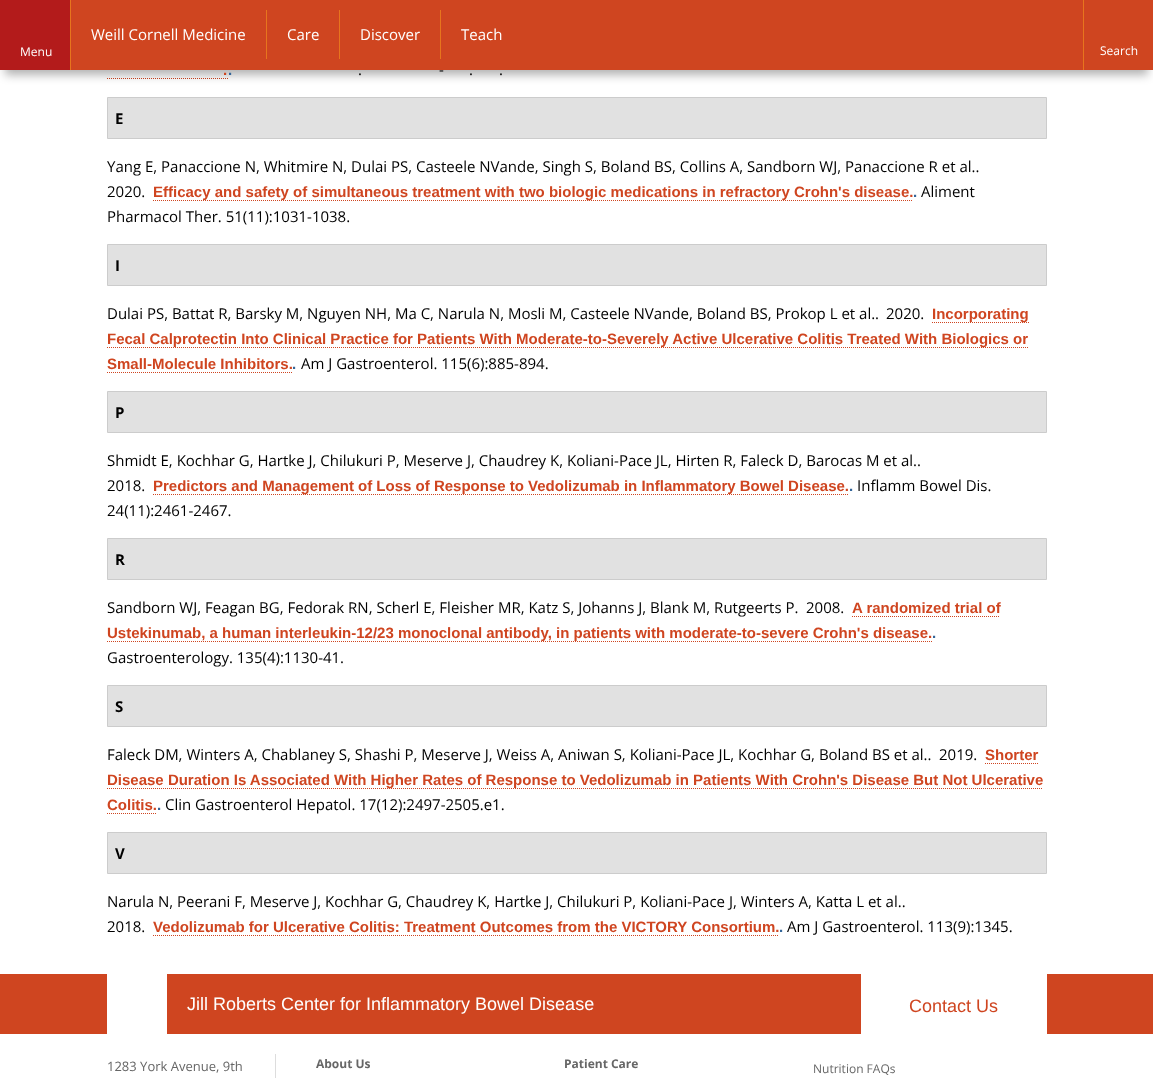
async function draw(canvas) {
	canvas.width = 1153;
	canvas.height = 1078;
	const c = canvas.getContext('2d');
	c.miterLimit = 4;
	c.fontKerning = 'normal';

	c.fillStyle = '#fff';
	c.fillRect(0, 0, 1153, 1078);
	c.beginPath();
	c.moveTo(107, 78.5);
	c.lineTo(228, 78.5);
	c.strokeStyle = '#cf4520';
	c.setLineDash([1, 1]);
	c.stroke();
	c.fillStyle = '#0000004d';
	c.filter = 'blur(5px)';
	c.beginPath();
	c.rect(5, 15, 1143, 60);
	c.fill();
	c.filter = 'none';
	c.fillStyle = '#cf4520';
	c.fillRect(71, 0, 1082, 70);
	c.fillStyle = '#e7751d';
	c.fillRect(266, 10, 1, 49);
	c.font = '15px Open Sans';
	c.fillStyle = '#fff';
	c.fillText('Weill Cornell Medicine', 91, 40);
	c.fillStyle = '#e7751d';
	c.fillRect(339, 10, 1, 49);
	c.fillStyle = '#fff';
	c.fillText('Care', 287, 40);
	c.fillStyle = '#e7751d';
	c.fillRect(440, 10, 1, 49);
	c.fillStyle = '#fff';
	c.fillText('Discover', 360, 40);
	c.fillText('Teach', 461, 40);
	c.fillStyle = '#b31b1b';
	c.fillRect(0, 0, 70, 70);
	c.fillStyle = '#e7751d';
	c.fillRect(70, 0, 1, 70);
	c.font = '12px Open Sans';
	c.fillStyle = '#fff';
	c.fillText('Menu', 20, 56);
	c.fillStyle = '#e7751d';
	c.fillRect(1083, 0, 1, 70);
	c.fillStyle = '#fff';
	c.fillText('Search', 1100, 55);
	c.font = '15px Open Sans';
	c.fillStyle = '#000';
	c.fillText('-', 439, 75);
	c.font = 'bold 15px Liberation Sans';
	c.fillStyle = '#cf4520';
	c.fillText('.', 223, 75);
	c.fillStyle = '#336599';
	c.fillText('.', 228, 75);
	c.font = '15px Open Sans';
	c.fillStyle = '#000';
	for (const [text, x, y] of [
		['.', 358, 75],
		['.', 469, 75],
		['.', 499, 75],
	]) {
		c.fillText(text, x, y);
	}
	c.fillStyle = '#e1e1e1';
	c.beginPath();
	c.rect(107.5, 97.5, 939, 41);
	c.fill();
	c.strokeStyle = '#ccc';
	c.setLineDash([]);
	c.stroke();
	c.font = 'bold 15px Open Sans';
	c.fillStyle = '#000';
	c.fillText('E', 115, 124);
	c.font = '15px Open Sans';
	c.fillText('Yang E, Panaccione N, Whitmire N, Dulai PS, Casteele NVande, Singh S, Boland BS, Collins A, Sandborn WJ, Panaccione R et al..', 107, 172);
	c.fillText('2020.', 107, 197);
	c.beginPath();
	c.moveTo(153, 200.5);
	c.lineTo(913, 200.5);
	c.strokeStyle = '#cf4520';
	c.setLineDash([1, 1]);
	c.stroke();
	c.font = 'bold 15px Liberation Sans';
	c.fillStyle = '#cf4520';
	c.fillText('Efficacy and safety of simultaneous treatment with two biologic medications in refractory Crohn\'s disease.', 153, 197);
	c.fillStyle = '#336599';
	c.fillText('.', 913, 197);
	c.font = '15px Open Sans';
	c.fillStyle = '#000';
	c.fillText('Aliment', 921, 197);
	c.fillText('Pharmacol Ther. 51(11):1031-1038.', 107, 222);
	c.fillStyle = '#e1e1e1';
	c.beginPath();
	c.rect(107.5, 244.5, 939, 41);
	c.fill();
	c.strokeStyle = '#ccc';
	c.setLineDash([]);
	c.stroke();
	c.font = 'bold 15px Open Sans';
	c.fillStyle = '#000';
	c.fillText('I', 115, 271);
	c.font = '15px Open Sans';
	c.fillText('Dulai PS, Battat R, Barsky M, Nguyen NH, Ma C, Narula N, Mosli M, Casteele NVande, Boland BS, Prokop L et al..', 107, 319);
	c.fillText('2020.', 886, 319);
	c.beginPath();
	c.moveTo(932, 322.5);
	c.lineTo(1029, 322.5);
	c.strokeStyle = '#cf4520';
	c.setLineDash([1, 1]);
	c.stroke();
	c.font = 'bold 15px Liberation Sans';
	c.fillStyle = '#cf4520';
	c.fillText('Incorporating', 932, 319);
	c.beginPath();
	c.moveTo(107, 347.5);
	c.lineTo(1028, 347.5);
	c.stroke();
	c.fillText('Fecal Calprotectin Into Clinical Practice for Patients With Moderate-to-Severely Active Ulcerative Colitis Treated With Biologics or', 107, 344);
	c.fillText('Small-Molecule Inhibitors.', 107, 369);
	c.fillStyle = '#336599';
	c.fillText('.', 292, 369);
	c.beginPath();
	c.moveTo(107, 372.5);
	c.lineTo(292, 372.5);
	c.stroke();
	c.font = '15px Open Sans';
	c.fillStyle = '#000';
	c.fillText('Am J Gastroenterol. 115(6):885-894.', 301, 369);
	c.fillStyle = '#e1e1e1';
	c.beginPath();
	c.rect(107.5, 391.5, 939, 41);
	c.fill();
	c.strokeStyle = '#ccc';
	c.setLineDash([]);
	c.stroke();
	c.font = 'bold 15px Open Sans';
	c.fillStyle = '#000';
	c.fillText('P', 115, 418);
	c.font = '15px Open Sans';
	c.fillText('Shmidt E, Kochhar G, Hartke J, Chilukuri P, Meserve J, Chaudrey K, Koliani-Pace JL, Hirten R, Faleck D, Barocas M et al..', 107, 466);
	c.fillText('2018.', 107, 491);
	c.beginPath();
	c.moveTo(153, 494.5);
	c.lineTo(849, 494.5);
	c.strokeStyle = '#cf4520';
	c.setLineDash([1, 1]);
	c.stroke();
	c.font = 'bold 15px Liberation Sans';
	c.fillStyle = '#cf4520';
	c.fillText('Predictors and Management of Loss of Response to Vedolizumab in Inflammatory Bowel Disease.', 153, 491);
	c.fillStyle = '#336599';
	c.fillText('.', 849, 491);
	c.font = '15px Open Sans';
	c.fillStyle = '#000';
	c.fillText('Inflamm Bowel Dis.', 857, 491);
	c.fillText('24(11):2461-2467.', 107, 516);
	c.fillStyle = '#e1e1e1';
	c.beginPath();
	c.rect(107.5, 538.5, 939, 41);
	c.fill();
	c.strokeStyle = '#ccc';
	c.setLineDash([]);
	c.stroke();
	c.font = 'bold 15px Open Sans';
	c.fillStyle = '#000';
	c.fillText('R', 115, 565);
	c.font = '15px Open Sans';
	c.fillText('Sandborn WJ, Feagan BG, Fedorak RN, Scherl E, Fleisher MR, Katz S, Johanns J, Blank M, Rutgeerts P.', 107, 613);
	c.fillText('2008.', 806, 613);
	c.font = 'bold 15px Liberation Sans';
	c.fillStyle = '#cf4520';
	c.fillText('A randomized trial of', 852, 613);
	c.beginPath();
	c.moveTo(852, 616.5);
	c.lineTo(1000, 616.5);
	c.strokeStyle = '#cf4520';
	c.setLineDash([1, 1]);
	c.stroke();
	c.beginPath();
	c.moveTo(107, 641.5);
	c.lineTo(932, 641.5);
	c.stroke();
	c.fillText('Ustekinumab, a human interleukin-12/23 monoclonal antibody, in patients with moderate-to-severe Crohn\'s disease.', 107, 638);
	c.fillStyle = '#336599';
	c.fillText('.', 932, 638);
	c.font = '15px Open Sans';
	c.fillStyle = '#000';
	c.fillText('Gastroenterology. 135(4):1130-41.', 107, 663);
	c.fillStyle = '#e1e1e1';
	c.beginPath();
	c.rect(107.5, 685.5, 939, 41);
	c.fill();
	c.strokeStyle = '#ccc';
	c.setLineDash([]);
	c.stroke();
	c.font = 'bold 15px Open Sans';
	c.fillStyle = '#000';
	c.fillText('S', 115, 712);
	c.font = '15px Open Sans';
	c.fillText('Faleck DM, Winters A, Chablaney S, Shashi P, Meserve J, Weiss A, Aniwan S, Koliani-Pace JL, Kochhar G, Boland BS et al..', 107, 760);
	c.fillText('2019.', 939, 760);
	c.font = 'bold 15px Liberation Sans';
	c.fillStyle = '#cf4520';
	c.fillText('Shorter', 985, 760);
	c.beginPath();
	c.moveTo(985, 763.5);
	c.lineTo(1038, 763.5);
	c.strokeStyle = '#cf4520';
	c.setLineDash([1, 1]);
	c.stroke();
	c.beginPath();
	c.moveTo(107, 788.5);
	c.lineTo(1043, 788.5);
	c.stroke();
	c.fillText('Disease Duration Is Associated With Higher Rates of Response to Vedolizumab in Patients With Crohn\'s Disease But Not Ulcerative', 107, 785);
	c.fillText('Colitis.', 107, 810);
	c.fillStyle = '#336599';
	c.fillText('.', 157, 810);
	c.beginPath();
	c.moveTo(107, 813.5);
	c.lineTo(157, 813.5);
	c.stroke();
	c.font = '15px Open Sans';
	c.fillStyle = '#000';
	c.fillText('Clin Gastroenterol Hepatol. 17(12):2497-2505.e1.', 165, 810);
	c.fillStyle = '#e1e1e1';
	c.beginPath();
	c.rect(107.5, 832.5, 939, 41);
	c.fill();
	c.strokeStyle = '#ccc';
	c.setLineDash([]);
	c.stroke();
	c.font = 'bold 15px Open Sans';
	c.fillStyle = '#000';
	c.fillText('V', 115, 859);
	c.font = '15px Open Sans';
	c.fillText('Narula N, Peerani F, Meserve J, Kochhar G, Chaudrey K, Hartke J, Chilukuri P, Koliani-Pace J, Winters A, Katta L et al..', 107, 907);
	c.fillText('2018.', 107, 932);
	c.font = 'bold 15px Liberation Sans';
	c.fillStyle = '#cf4520';
	c.fillText('Vedolizumab for Ulcerative Colitis: Treatment Outcomes from the VICTORY Consortium.', 153, 932);
	c.fillStyle = '#336599';
	c.fillText('.', 779, 932);
	c.beginPath();
	c.moveTo(153, 935.5);
	c.lineTo(779, 935.5);
	c.strokeStyle = '#cf4520';
	c.setLineDash([1, 1]);
	c.stroke();
	c.font = '15px Open Sans';
	c.fillStyle = '#000';
	c.fillText('Am J Gastroenterol. 113(9):1345.', 787, 932);
	c.fillStyle = '#cf4520';
	c.fillRect(0, 974, 1153, 60);
	c.fillStyle = '#fff';
	c.fillRect(107, 974, 60, 60);
	c.font = '18px Liberation Sans';
	c.fillText('Jill Roberts Center for Inflammatory Bowel Disease', 187, 1010);
	c.fillRect(861, 974, 186, 60);
	c.fillStyle = '#cf4520';
	c.fillText('Contact Us', 909, 1012);
	c.fillStyle = '#ddd';
	c.fillRect(275, 1054, 1, 24);
	c.font = '13px Open Sans';
	c.fillStyle = '#666';
	c.fillText('1283 York Avenue, 9th', 107, 1071);
	c.font = 'bold 12px Open Sans';
	c.fillText('About Us', 316, 1068);
	c.fillText('Patient Care', 564, 1068);
	c.font = '12px Open Sans';
	c.fillText('Nutrition FAQs', 813, 1073);
}

draw(document.querySelector('canvas'));
